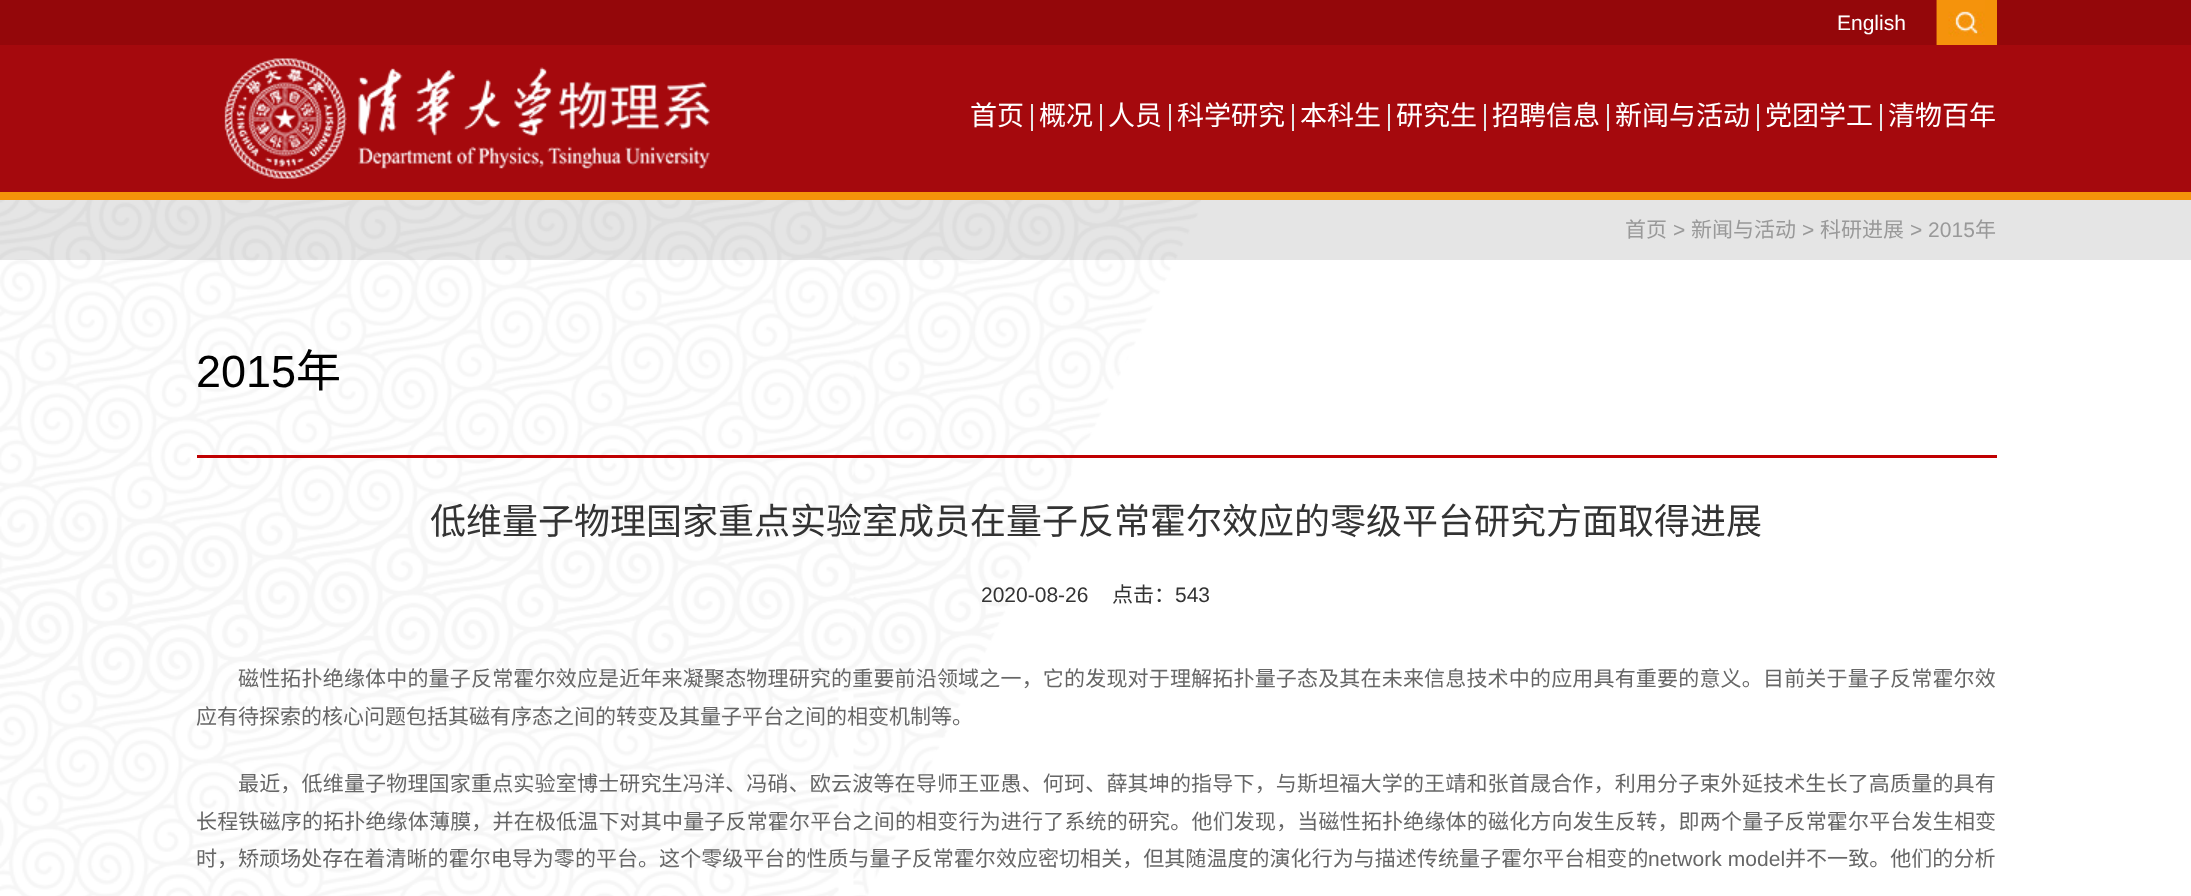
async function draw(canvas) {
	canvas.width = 2191;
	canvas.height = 896;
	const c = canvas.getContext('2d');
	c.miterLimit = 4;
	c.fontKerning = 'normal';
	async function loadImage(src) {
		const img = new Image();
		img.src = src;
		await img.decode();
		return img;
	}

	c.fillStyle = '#fff';
	c.fillRect(0, 0, 2191, 896);
	c.fillStyle = '#94070a';
	c.fillRect(0, 0, 2191, 45);
	c.font = '21px Liberation Sans';
	c.fillStyle = '#fff';
	c.fillText('English', 1837, 30);
	c.fillStyle = '#f4930a';
	c.fillRect(1985, 0, 12, 45);
	c.drawImage(await loadImage('img1.png'), 1937, 0, 48, 45);
	for (const [x, y, w, h, color] of [
		[1936, 0, 1, 45, '#bf440b'],
		[0, 45, 2191, 147, '#a5090d'],
		[0, 192, 2191, 8, '#f4930a'],
	]) {
		c.fillStyle = color;
		c.fillRect(x, y, w, h);
	}
	c.drawImage(await loadImage('img2.png'), 224, 58, 486, 121);
	c.font = '27px Noto Sans CJK SC';
	c.fillStyle = '#fff';
	c.fillText('首页', 970, 125);
	c.fillStyle = '#e5e5e5';
	c.fillRect(1031, 104, 2, 27);
	c.fillStyle = '#fff';
	c.fillText('概况', 1039, 125);
	c.fillStyle = '#e5e5e5';
	c.fillRect(1100, 104, 2, 27);
	c.fillStyle = '#fff';
	c.fillText('人员', 1108, 125);
	c.fillStyle = '#e5e5e5';
	c.fillRect(1169, 104, 2, 27);
	c.fillStyle = '#fff';
	c.fillText('科学研究', 1177, 125);
	c.fillStyle = '#e5e5e5';
	c.fillRect(1292, 104, 2, 27);
	c.fillStyle = '#fff';
	c.fillText('本科生', 1300, 125);
	c.fillStyle = '#e5e5e5';
	c.fillRect(1388, 104, 2, 27);
	c.fillStyle = '#fff';
	c.fillText('研究生', 1396, 125);
	c.fillStyle = '#e5e5e5';
	c.fillRect(1484, 104, 2, 27);
	c.fillStyle = '#fff';
	c.fillText('招聘信息', 1492, 125);
	c.fillStyle = '#e5e5e5';
	c.fillRect(1607, 104, 2, 27);
	c.fillStyle = '#fff';
	c.fillText('新闻与活动', 1615, 125);
	c.fillStyle = '#e5e5e5';
	c.fillRect(1757, 104, 2, 27);
	c.fillStyle = '#fff';
	c.fillText('党团学工', 1765, 125);
	c.fillStyle = '#e5e5e5';
	c.fillRect(1880, 104, 2, 27);
	c.fillStyle = '#fff';
	c.fillText('清物百年', 1888, 125);
	c.drawImage(await loadImage('img3.png'), 0, 200, 1201, 696);
	c.fillStyle = '#0000001a';
	c.fillRect(0, 200, 2191, 60);
	c.font = '21px Noto Sans CJK SC';
	c.fillStyle = '#999';
	c.fillText('首页', 1625, 237);
	c.font = '21px Liberation Sans';
	c.fillText('>', 1673, 237);
	c.font = '21px Noto Sans CJK SC';
	c.fillText('新闻与活动', 1691, 237);
	c.font = '21px Liberation Sans';
	c.fillText('>', 1802, 237);
	c.font = '21px Noto Sans CJK SC';
	c.fillText('科研进展', 1820, 237);
	c.font = '21px Liberation Sans';
	c.fillText('> 2015', 1910, 237);
	c.font = '21px Noto Sans CJK SC';
	c.fillText('年', 1975, 237);
	c.fillStyle = '#c00001';
	c.fillRect(197, 455, 1800, 3);
	c.font = '45px Liberation Sans';
	c.fillStyle = '#000';
	c.fillText('2015', 196, 387);
	c.font = '45px Noto Sans CJK SC';
	c.fillText('年', 296, 387);
	c.font = '36px Noto Sans CJK SC';
	c.fillStyle = '#333';
	c.fillText('低维量子物理国家重点实验室成员在量子反常霍尔效应的零级平台研究方面取得进展', 430, 534);
	c.font = '21px Liberation Sans';
	c.fillText('2020-08-26', 981, 602);
	c.font = '21px Noto Sans CJK SC';
	c.fillText('点击：', 1112, 602);
	c.font = '21px Liberation Sans';
	c.fillText('543', 1175, 602);
	c.letterSpacing = '0.18px';
	c.font = '21px Noto Sans CJK SC';
	c.fillStyle = '#666';
	c.fillText('磁性拓扑绝缘体中的量子反常霍尔效应是近年来凝聚态物理研究的重要前沿领域之一，它的发现对于理解拓扑量子态及其在未来信息技术中的应用具有重要的意义。目前关于量子反常霍尔效', 238, 686);
	c.letterSpacing = '0px';
	c.fillText('应有待探索的核心问题包括其磁有序态之间的转变及其量子平台之间的相变机制等。', 196, 724);
	c.letterSpacing = '0.18px';
	c.fillText('最近，低维量子物理国家重点实验室博士研究生冯洋、冯硝、欧云波等在导师王亚愚、何珂、薛其坤的指导下，与斯坦福大学的王靖和张首晟合作，利用分子束外延技术生长了高质量的具有', 238, 791);
	c.fillText('长程铁磁序的拓扑绝缘体薄膜，并在极低温下对其中量子反常霍尔平台之间的相变行为进行了系统的研究。他们发现，当磁性拓扑绝缘体的磁化方向发生反转，即两个量子反常霍尔平台发生相变', 196, 829);
	c.letterSpacing = '0.05px';
	c.fillText('时，矫顽场处存在着清晰的霍尔电导为零的平台。这个零级平台的性质与量子反常霍尔效应密切相关，但其随温度的演化行为与描述传统量子霍尔平台相变的', 196, 866);
	c.font = '21px Liberation Sans';
	c.fillText('network model', 1648, 866);
	c.font = '21px Noto Sans CJK SC';
	c.fillText('并不一致。他们的分析', 1785, 866);
}

draw(document.querySelector('canvas'));
